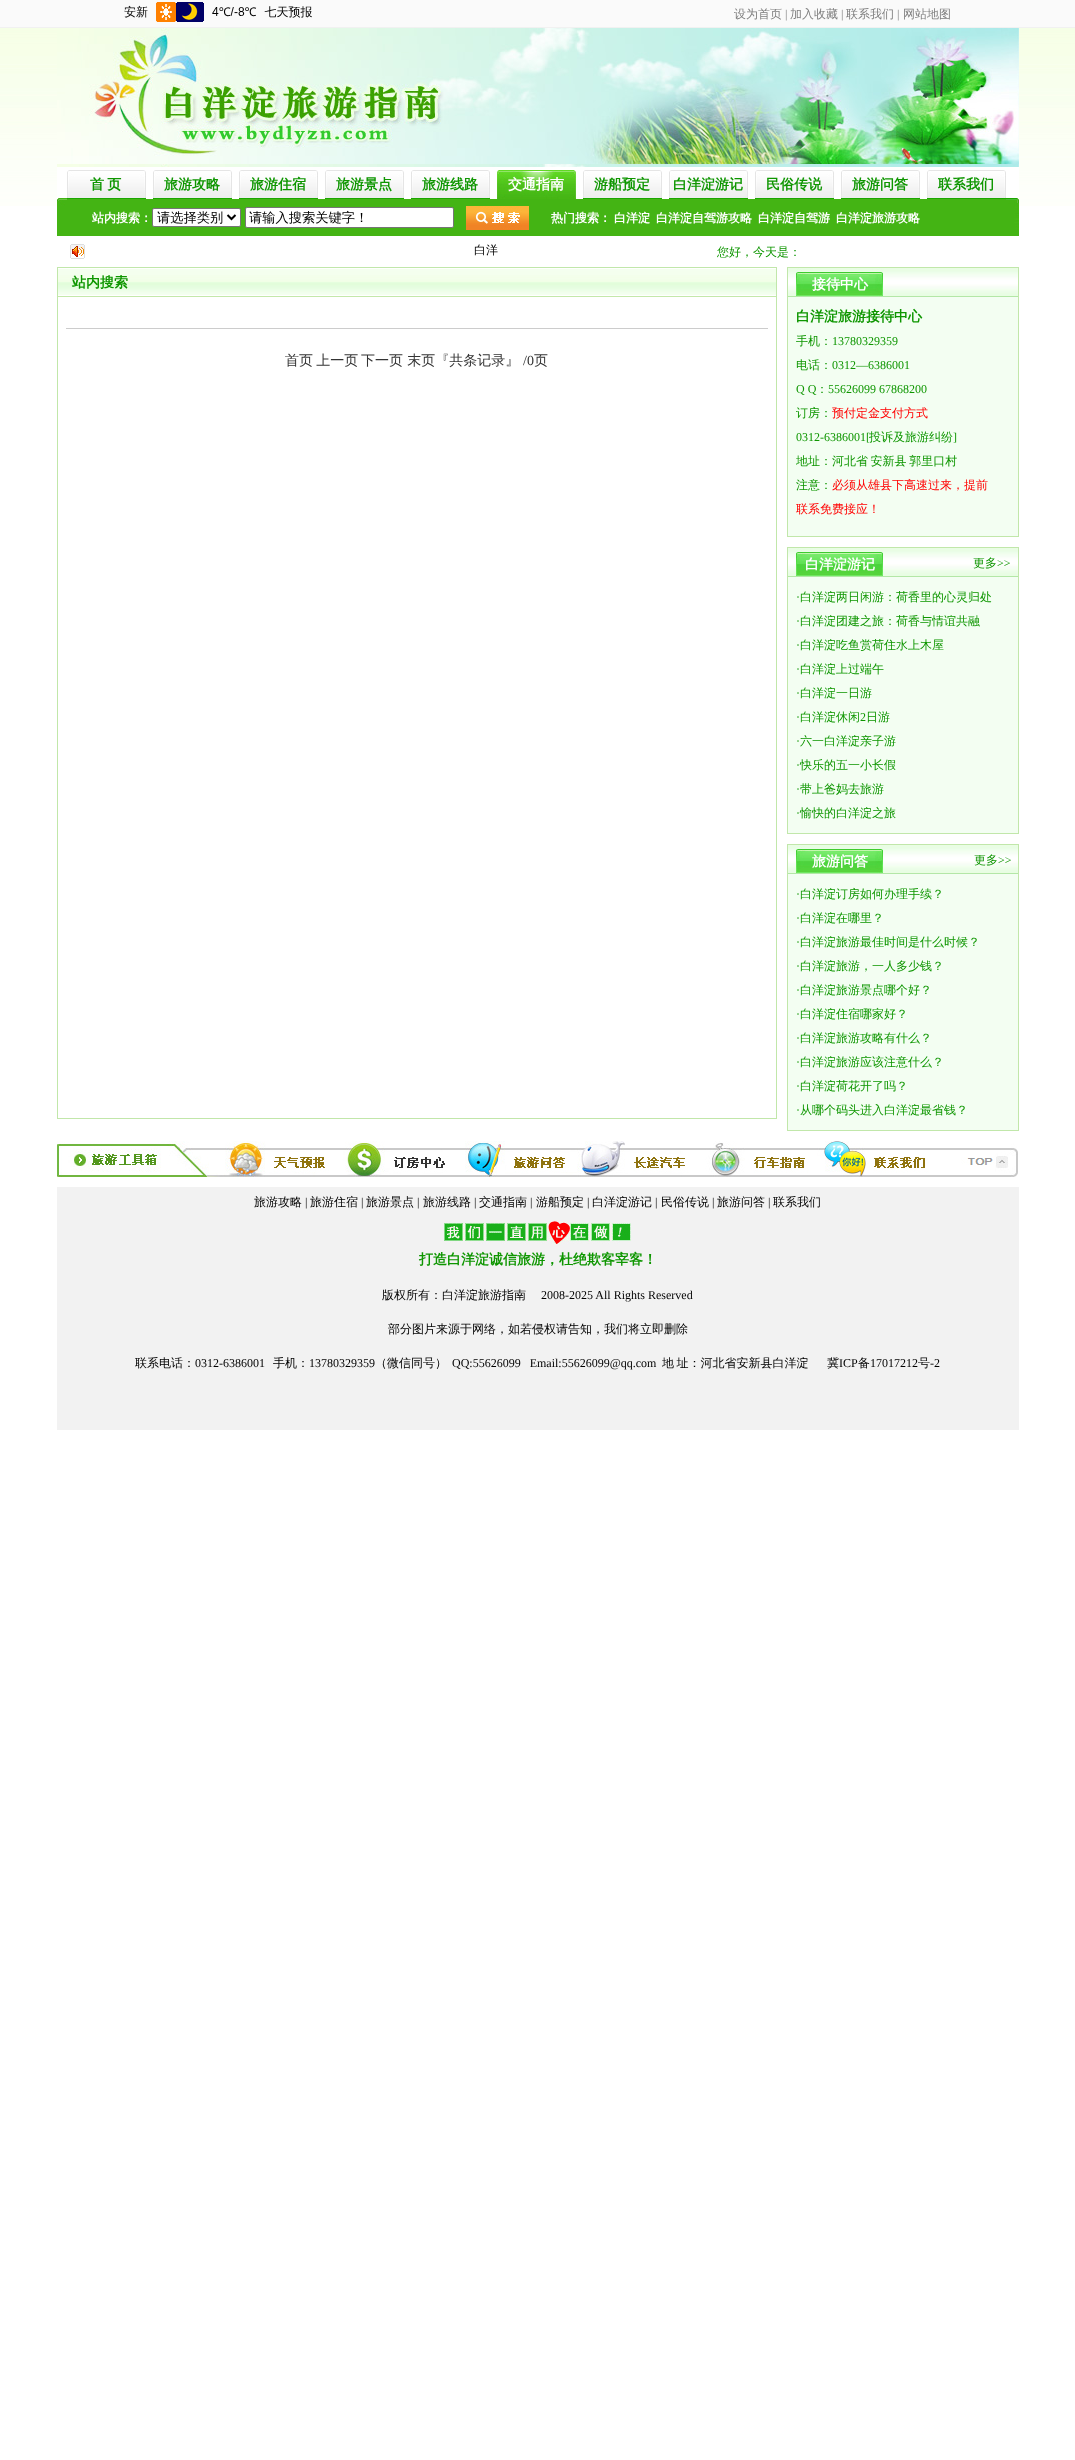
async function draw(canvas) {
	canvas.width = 1075;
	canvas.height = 2460;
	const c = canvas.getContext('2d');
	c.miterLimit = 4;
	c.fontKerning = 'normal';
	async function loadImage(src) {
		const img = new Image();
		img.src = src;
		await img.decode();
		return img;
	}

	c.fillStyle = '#fff';
	c.fillRect(0, 0, 1075, 2460);
	c.drawImage(await loadImage('img1.png'), 0, 0, 1075, 206);
	c.drawImage(await loadImage('img2.png'), 124, 2, 188, 20);
	c.font = '500 12px WenQuanYi Zen Hei';
	c.fillStyle = '#7e7e7e';
	c.fillText('设为首页', 734, 18);
	c.font = '12px Liberation Serif';
	c.fillText('|', 785, 18);
	c.font = '500 12px WenQuanYi Zen Hei';
	c.fillText('加入收藏', 790, 18);
	c.font = '12px Liberation Serif';
	c.fillText('|', 841, 18);
	c.font = '500 12px WenQuanYi Zen Hei';
	c.fillText('联系我们', 846, 18);
	c.font = '12px Liberation Serif';
	c.fillText('|', 897, 18);
	c.font = '500 12px WenQuanYi Zen Hei';
	c.fillText('网站地图', 903, 18);
	c.drawImage(await loadImage('img3.png'), 57, 28, 962, 139);
	c.fillStyle = '#fff';
	c.fillRect(57, 167, 962, 32);
	c.drawImage(await loadImage('img4.png'), 57, 198, 10, 38);
	c.drawImage(await loadImage('img5.png'), 67, 170, 79, 29);
	c.wordSpacing = '-1px';
	c.font = 'bold 14px WenQuanYi Zen Hei';
	c.fillStyle = '#0e9600';
	c.fillText('首 页', 90, 189);
	c.drawImage(await loadImage('img5.png'), 153, 170, 79, 29);
	c.wordSpacing = '0px';
	c.fillText('旅游攻略', 164, 189);
	c.drawImage(await loadImage('img5.png'), 239, 170, 79, 29);
	c.fillText('旅游住宿', 250, 189);
	c.drawImage(await loadImage('img5.png'), 325, 170, 79, 29);
	c.fillText('旅游景点', 336, 189);
	c.drawImage(await loadImage('img5.png'), 411, 170, 79, 29);
	c.fillText('旅游线路', 422, 189);
	c.drawImage(await loadImage('img6.png'), 497, 170, 79, 29);
	c.fillStyle = '#fff';
	c.fillText('交通指南', 508, 189);
	c.drawImage(await loadImage('img5.png'), 583, 170, 79, 29);
	c.fillStyle = '#0e9600';
	c.fillText('游船预定', 594, 189);
	c.drawImage(await loadImage('img5.png'), 669, 170, 79, 29);
	c.fillText('白洋淀游记', 673, 189);
	c.drawImage(await loadImage('img5.png'), 755, 170, 79, 29);
	c.fillText('民俗传说', 766, 189);
	c.drawImage(await loadImage('img5.png'), 841, 170, 79, 29);
	c.fillText('旅游问答', 852, 189);
	c.drawImage(await loadImage('img5.png'), 927, 170, 79, 29);
	c.fillText('联系我们', 938, 189);
	c.fillStyle = '#44b414';
	c.fillRect(67, 199, 939, 37);
	c.font = 'bold 12px WenQuanYi Zen Hei';
	c.fillStyle = '#fff';
	c.fillText('站内搜索：', 92, 222);
	c.beginPath();
	c.roundRect(152.5, 208.5, 88, 18, 1.5);
	c.fill();
	c.strokeStyle = '#767676';
	c.stroke();
	c.beginPath();
	c.moveTo(227.5, 215);
	c.lineTo(231.5, 219);
	c.lineTo(235.5, 215);
	c.strokeStyle = '#000';
	c.lineWidth = 2;
	c.stroke();
	c.font = '500 13.25px WenQuanYi Zen Hei';
	c.fillStyle = '#000';
	c.fillText('请选择类别', 157, 222);
	c.fillStyle = '#fff';
	c.beginPath();
	c.roundRect(245.5, 207.5, 208, 20, 1.5);
	c.fill();
	c.strokeStyle = '#767676';
	c.lineWidth = 1;
	c.stroke();
	c.fillStyle = '#000';
	c.fillText('请输入搜索关键字！', 249, 222);
	c.drawImage(await loadImage('img7.png'), 466, 206, 63, 24);
	c.font = 'bold 12px WenQuanYi Zen Hei';
	c.fillStyle = '#fff';
	for (const [text, x, y] of [
		['热门搜索：', 551, 222],
		['白洋淀', 614, 222],
		['白洋淀自驾游攻略', 656, 222],
		['白洋淀自驾游', 758, 222],
		['白洋淀旅游攻略', 836, 222],
	]) {
		c.fillText(text, x, y);
	}
	c.drawImage(await loadImage('img8.png'), 1006, 198, 13, 38);
	c.drawImage(await loadImage('img9.png'), 70, 244, 15, 15);
	c.font = '500 12px WenQuanYi Zen Hei';
	c.fillStyle = '#000';
	c.fillText('白洋', 474, 254);
	c.fillStyle = '#0e9600';
	c.fillText('您好，今天是：', 717, 256);
	c.strokeStyle = '#c1e7aa';
	c.strokeRect(57.5, 267.5, 719, 851);
	c.drawImage(await loadImage('img10.png'), 58, 269, 718, 28);
	c.font = 'bold 14px WenQuanYi Zen Hei';
	c.fillText('站内搜索', 72, 287);
	c.fillStyle = '#ccc';
	c.fillRect(66, 328, 702, 1);
	c.wordSpacing = '-1px';
	c.font = '500 14px WenQuanYi Zen Hei';
	c.fillStyle = '#333';
	c.fillText('首页 上一页', 285, 365);
	c.wordSpacing = '0px';
	c.fillText('下一页 末页『共条记录』', 361, 365);
	c.font = '14px Liberation Serif';
	c.fillText('/0', 523, 365);
	c.font = '500 14px WenQuanYi Zen Hei';
	c.fillText('页', 534, 365);
	c.strokeRect(787.5, 267.5, 231, 269);
	c.fillStyle = '#f3fef2';
	c.fillRect(788, 297, 230, 239);
	c.drawImage(await loadImage('img11.png'), 788, 268, 230, 29);
	c.font = 'bold 14px WenQuanYi Zen Hei';
	c.fillStyle = '#fff';
	c.fillText('接待中心', 812, 289);
	c.fillStyle = '#0e9600';
	c.fillText('白洋淀旅游接待中心', 796, 321);
	c.font = '500 12px WenQuanYi Zen Hei';
	c.fillText('手机：', 796, 345);
	c.font = '12px Liberation Serif';
	c.fillText('13780329359', 832, 345);
	c.font = '500 12px WenQuanYi Zen Hei';
	c.fillText('电话：', 796, 369);
	c.font = '12px Liberation Serif';
	c.fillText('0312—6386001', 832, 369);
	c.fillText('Q Q', 796, 393);
	c.font = '500 12px WenQuanYi Zen Hei';
	c.fillText('：', 816, 393);
	c.font = '12px Liberation Serif';
	c.fillText('55626099 67868200', 828, 393);
	c.font = '500 12px WenQuanYi Zen Hei';
	c.fillText('订房：', 796, 417);
	c.fillStyle = '#f00';
	c.fillText('预付定金支付方式', 832, 417);
	c.font = '12px Liberation Serif';
	c.fillStyle = '#0e9600';
	c.fillText('0312-6386001[', 796, 441);
	c.font = '500 12px WenQuanYi Zen Hei';
	c.fillText('投诉及旅游纠纷', 869, 441);
	c.font = '12px Liberation Serif';
	c.fillText(']', 953, 441);
	c.wordSpacing = '-1px';
	c.font = '500 12px WenQuanYi Zen Hei';
	c.fillText('地址：河北省 安新县 郭里口村', 796, 465);
	c.wordSpacing = '0px';
	c.fillText('注意：', 796, 489);
	c.fillStyle = '#f00';
	c.fillText('必须从雄县下高速过来，提前', 832, 489);
	c.fillText('联系免费接应！', 796, 513);
	c.strokeRect(787.5, 547.5, 231, 286);
	c.fillStyle = '#f3fef2';
	c.fillRect(788, 577, 230, 256);
	c.drawImage(await loadImage('img11.png'), 788, 548, 230, 29);
	c.font = 'bold 14px WenQuanYi Zen Hei';
	c.fillStyle = '#fff';
	c.fillText('白洋淀游记', 805, 569);
	c.font = '500 12px WenQuanYi Zen Hei';
	c.fillStyle = '#0e9600';
	c.fillText('更多', 973, 567);
	c.font = '12px Liberation Serif';
	c.fillText('>>', 997, 567);
	c.fillText('·', 796, 601);
	c.font = '500 12px WenQuanYi Zen Hei';
	c.fillText('白洋淀两日闲游：荷香里的心灵归处', 800, 601);
	c.font = '12px Liberation Serif';
	c.fillText('·', 796, 625);
	c.font = '500 12px WenQuanYi Zen Hei';
	c.fillText('白洋淀团建之旅：荷香与情谊共融', 800, 625);
	c.font = '12px Liberation Serif';
	c.fillText('·', 796, 649);
	c.font = '500 12px WenQuanYi Zen Hei';
	c.fillText('白洋淀吃鱼赏荷住水上木屋', 800, 649);
	c.font = '12px Liberation Serif';
	c.fillText('·', 796, 673);
	c.font = '500 12px WenQuanYi Zen Hei';
	c.fillText('白洋淀上过端午', 800, 673);
	c.font = '12px Liberation Serif';
	c.fillText('·', 796, 697);
	c.font = '500 12px WenQuanYi Zen Hei';
	c.fillText('白洋淀一日游', 800, 697);
	c.font = '12px Liberation Serif';
	c.fillText('·', 796, 721);
	c.font = '500 12px WenQuanYi Zen Hei';
	c.fillText('白洋淀休闲', 800, 721);
	c.font = '12px Liberation Serif';
	c.fillText('2', 860, 721);
	c.font = '500 12px WenQuanYi Zen Hei';
	c.fillText('日游', 866, 721);
	c.font = '12px Liberation Serif';
	c.fillText('·', 796, 745);
	c.font = '500 12px WenQuanYi Zen Hei';
	c.fillText('六一白洋淀亲子游', 800, 745);
	c.font = '12px Liberation Serif';
	c.fillText('·', 796, 769);
	c.font = '500 12px WenQuanYi Zen Hei';
	c.fillText('快乐的五一小长假', 800, 769);
	c.font = '12px Liberation Serif';
	c.fillText('·', 796, 793);
	c.font = '500 12px WenQuanYi Zen Hei';
	c.fillText('带上爸妈去旅游', 800, 793);
	c.font = '12px Liberation Serif';
	c.fillText('·', 796, 817);
	c.font = '500 12px WenQuanYi Zen Hei';
	c.fillText('愉快的白洋淀之旅', 800, 817);
	c.strokeRect(787.5, 844.5, 231, 286);
	c.fillStyle = '#f3fef2';
	c.fillRect(788, 874, 230, 256);
	c.drawImage(await loadImage('img11.png'), 788, 845, 230, 29);
	c.font = 'bold 14px WenQuanYi Zen Hei';
	c.fillStyle = '#fff';
	c.fillText('旅游问答', 812, 866);
	c.font = '500 12px WenQuanYi Zen Hei';
	c.fillStyle = '#0e9600';
	c.fillText('更多', 974, 864);
	c.font = '12px Liberation Serif';
	c.fillText('>>', 998, 864);
	c.fillText('·', 796, 898);
	c.font = '500 12px WenQuanYi Zen Hei';
	c.fillText('白洋淀订房如何办理手续？', 800, 898);
	c.font = '12px Liberation Serif';
	c.fillText('·', 796, 922);
	c.font = '500 12px WenQuanYi Zen Hei';
	c.fillText('白洋淀在哪里？', 800, 922);
	c.font = '12px Liberation Serif';
	c.fillText('·', 796, 946);
	c.font = '500 12px WenQuanYi Zen Hei';
	c.fillText('白洋淀旅游最佳时间是什么时候？', 800, 946);
	c.font = '12px Liberation Serif';
	c.fillText('·', 796, 970);
	c.font = '500 12px WenQuanYi Zen Hei';
	c.fillText('白洋淀旅游，一人多少钱？', 800, 970);
	c.font = '12px Liberation Serif';
	c.fillText('·', 796, 994);
	c.font = '500 12px WenQuanYi Zen Hei';
	c.fillText('白洋淀旅游景点哪个好？', 800, 994);
	c.font = '12px Liberation Serif';
	c.fillText('·', 796, 1018);
	c.font = '500 12px WenQuanYi Zen Hei';
	c.fillText('白洋淀住宿哪家好？', 800, 1018);
	c.font = '12px Liberation Serif';
	c.fillText('·', 796, 1042);
	c.font = '500 12px WenQuanYi Zen Hei';
	c.fillText('白洋淀旅游攻略有什么？', 800, 1042);
	c.font = '12px Liberation Serif';
	c.fillText('·', 796, 1066);
	c.font = '500 12px WenQuanYi Zen Hei';
	c.fillText('白洋淀旅游应该注意什么？', 800, 1066);
	c.font = '12px Liberation Serif';
	c.fillText('·', 796, 1090);
	c.font = '500 12px WenQuanYi Zen Hei';
	c.fillText('白洋淀荷花开了吗？', 800, 1090);
	c.font = '12px Liberation Serif';
	c.fillText('·', 796, 1114);
	c.font = '500 12px WenQuanYi Zen Hei';
	c.fillText('从哪个码头进入白洋淀最省钱？', 800, 1114);
	c.drawImage(await loadImage('img12.png'), 57, 1141, 961, 36);
	c.fillStyle = '#f2f2f2';
	c.fillRect(57, 1187, 962, 243);
	c.fillStyle = '#000';
	c.fillText('旅游攻略', 254, 1206);
	c.font = '12px Liberation Serif';
	c.fillText('|', 305, 1206);
	c.font = '500 12px WenQuanYi Zen Hei';
	c.fillText('旅游住宿', 310, 1206);
	c.font = '12px Liberation Serif';
	c.fillText('|', 361, 1206);
	c.font = '500 12px WenQuanYi Zen Hei';
	c.fillText('旅游景点', 366, 1206);
	c.font = '12px Liberation Serif';
	c.fillText('|', 417, 1206);
	c.font = '500 12px WenQuanYi Zen Hei';
	c.fillText('旅游线路', 423, 1206);
	c.font = '12px Liberation Serif';
	c.fillText('|', 474, 1206);
	c.font = '500 12px WenQuanYi Zen Hei';
	c.fillText('交通指南', 479, 1206);
	c.font = '12px Liberation Serif';
	c.fillText('|', 530, 1206);
	c.font = '500 12px WenQuanYi Zen Hei';
	c.fillText('游船预定', 536, 1206);
	c.font = '12px Liberation Serif';
	c.fillText('|', 587, 1206);
	c.font = '500 12px WenQuanYi Zen Hei';
	c.fillText('白洋淀游记', 592, 1206);
	c.font = '12px Liberation Serif';
	c.fillText('|', 655, 1206);
	c.font = '500 12px WenQuanYi Zen Hei';
	c.fillText('民俗传说', 661, 1206);
	c.font = '12px Liberation Serif';
	c.fillText('|', 712, 1206);
	c.font = '500 12px WenQuanYi Zen Hei';
	c.fillText('旅游问答', 717, 1206);
	c.font = '12px Liberation Serif';
	c.fillText('|', 768, 1206);
	c.font = '500 12px WenQuanYi Zen Hei';
	c.fillText('联系我们', 773, 1206);
	c.drawImage(await loadImage('img13.png'), 444, 1221, 187, 23);
	c.font = 'bold 14px WenQuanYi Zen Hei';
	c.fillStyle = '#0e9600';
	c.fillText('打造白洋淀诚信旅游，杜绝欺客宰客！', 419, 1264);
	c.font = '500 12px WenQuanYi Zen Hei';
	c.fillStyle = '#000';
	c.fillText('版权所有：白洋淀旅游指南', 382, 1299);
	c.font = '12px Liberation Serif';
	c.fillText('2008-2025 All Rights Reserved', 541, 1299);
	c.font = '500 12px WenQuanYi Zen Hei';
	c.fillText('部分图片来源于网络，如若侵权请告知，我们将立即删除', 388, 1333);
	c.fillText('联系电话：', 135, 1367);
	c.font = '12px Liberation Serif';
	c.fillText('0312-6386001', 195, 1367);
	c.font = '500 12px WenQuanYi Zen Hei';
	c.fillText('手机：', 273, 1367);
	c.font = '12px Liberation Serif';
	c.fillText('13780329359', 309, 1367);
	c.font = '500 12px WenQuanYi Zen Hei';
	c.fillText('（微信同号）', 375, 1367);
	c.font = '12px Liberation Serif';
	c.fillText('QQ:55626099   Email:55626099@qq.com', 452, 1367);
	c.wordSpacing = '-1px';
	c.font = '500 12px WenQuanYi Zen Hei';
	c.fillText('地 址：河北省安新县白洋淀', 662, 1367);
	c.wordSpacing = '0px';
	c.fillText('冀', 827, 1367);
	c.font = '12px Liberation Serif';
	c.fillText('ICP', 839, 1367);
	c.font = '500 12px WenQuanYi Zen Hei';
	c.fillText('备', 858, 1367);
	c.font = '12px Liberation Serif';
	c.fillText('17017212', 870, 1367);
	c.font = '500 12px WenQuanYi Zen Hei';
	c.fillText('号', 918, 1367);
	c.font = '12px Liberation Serif';
	c.fillText('-2', 930, 1367);
}

draw(document.querySelector('canvas'));
